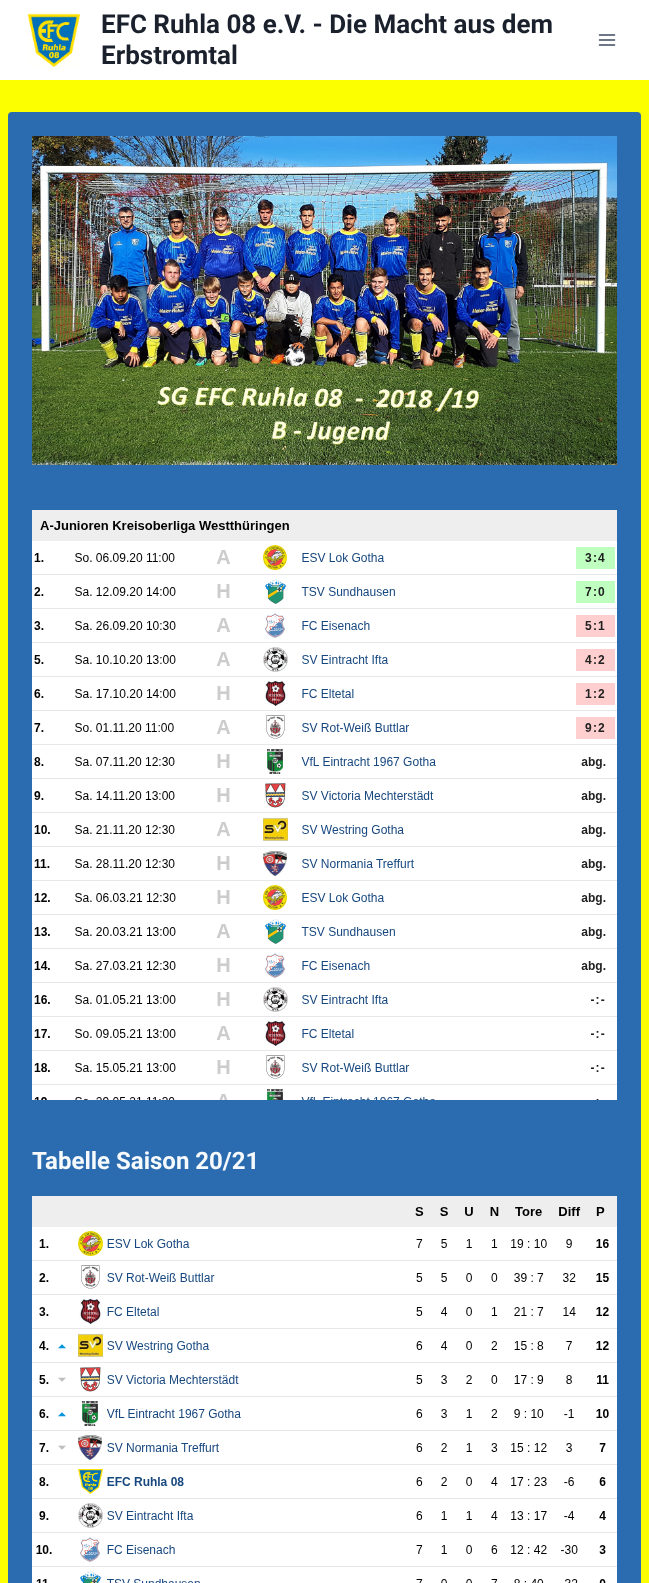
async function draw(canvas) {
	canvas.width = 649;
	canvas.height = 1583;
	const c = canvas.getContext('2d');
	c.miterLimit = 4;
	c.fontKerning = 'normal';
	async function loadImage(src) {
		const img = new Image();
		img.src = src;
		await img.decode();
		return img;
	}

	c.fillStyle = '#fbff00';
	c.fillRect(0, 0, 649, 1583);
	c.fillStyle = '#fff';
	c.fillRect(0, 0, 649, 80);
	c.drawImage(await loadImage('img1.png'), 27, 13, 54, 55);
	c.font = 'bold 26px Roboto';
	c.fillStyle = '#1a202c';
	c.fillText('EFC Ruhla 08 e.V. - Die Macht aus dem', 101, 33);
	c.fillText('Erbstromtal', 101, 64);
	c.drawImage(await loadImage('img2.png'), 598, 34, 18, 12);
	c.fillStyle = '#2b6cb0';
	c.beginPath();
	c.roundRect(8, 112, 633, 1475, 4);
	c.fill();
	c.drawImage(await loadImage('img3.png'), 32, 136, 585, 329);
	c.drawImage(await loadImage('img4.png'), 32, 510, 585, 590);
	c.font = 'bold 24px Roboto';
	c.fillStyle = '#f7fafc';
	c.fillText('Tabelle Saison 20/21', 32, 1169);
	c.drawImage(await loadImage('img5.png'), 32, 1196, 585, 387);
}

draw(document.querySelector('canvas'));
